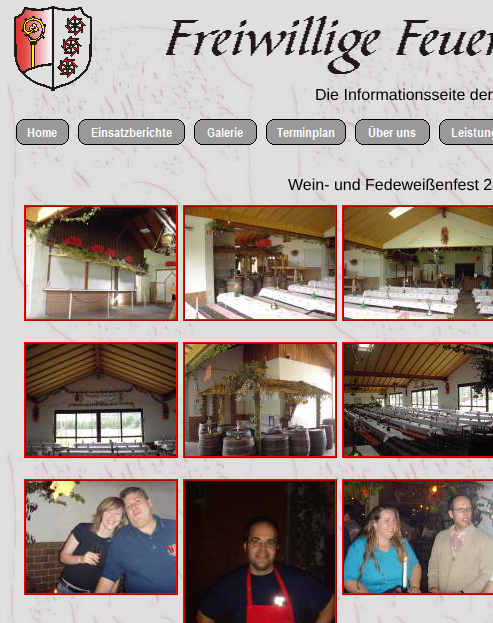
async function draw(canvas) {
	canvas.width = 493;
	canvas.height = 623;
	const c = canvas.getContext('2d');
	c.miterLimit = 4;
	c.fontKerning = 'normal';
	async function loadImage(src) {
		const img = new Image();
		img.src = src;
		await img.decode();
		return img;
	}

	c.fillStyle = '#fff';
	c.fillRect(0, 0, 493, 623);
	c.drawImage(await loadImage('img1.png'), 0, 0, 493, 623);
	c.drawImage(await loadImage('img2.png'), 14, 6, 78, 85);
	c.drawImage(await loadImage('img3.png'), 166, 16, 327, 58);
	c.font = '16px Liberation Sans';
	c.fillStyle = '#000';
	c.fillText('Die Informationsseite der', 315, 100);
	c.drawImage(await loadImage('img4.png'), 16, 119, 53, 26);
	c.drawImage(await loadImage('img5.png'), 78, 119, 107, 26);
	c.drawImage(await loadImage('img6.png'), 194, 119, 63, 26);
	c.drawImage(await loadImage('img7.png'), 266, 119, 80, 26);
	c.drawImage(await loadImage('img8.png'), 355, 119, 75, 26);
	c.drawImage(await loadImage('img9.png'), 439, 119, 54, 26);
	c.fillText('Wein- und Fedeweißenfest 2', 288, 190);
	for (const [x, y, w, h, color] of [
		[24, 205, 154, 1, '#f00'],
		[177, 205, 1, 116, '#a00'],
		[24, 320, 154, 1, '#a00'],
		[24, 205, 1, 116, '#f00'],
		[25, 206, 152, 1, '#a00'],
		[176, 206, 1, 114, '#f00'],
		[25, 319, 152, 1, '#f00'],
		[25, 206, 1, 114, '#a00'],
	]) {
		c.fillStyle = color;
		c.fillRect(x, y, w, h);
	}
	c.drawImage(await loadImage('img10.png'), 26, 207, 150, 112);
	for (const [x, y, w, h, color] of [
		[183, 205, 154, 1, '#f00'],
		[336, 205, 1, 116, '#a00'],
		[183, 320, 154, 1, '#a00'],
		[183, 205, 1, 116, '#f00'],
		[184, 206, 152, 1, '#a00'],
		[335, 206, 1, 114, '#f00'],
		[184, 319, 152, 1, '#f00'],
		[184, 206, 1, 114, '#a00'],
	]) {
		c.fillStyle = color;
		c.fillRect(x, y, w, h);
	}
	c.drawImage(await loadImage('img11.png'), 185, 207, 150, 112);
	for (const [x, y, w, h, color] of [
		[342, 205, 151, 1, '#f00'],
		[342, 320, 151, 1, '#a00'],
		[342, 205, 1, 116, '#f00'],
		[343, 206, 150, 1, '#a00'],
		[343, 319, 150, 1, '#f00'],
		[343, 206, 1, 114, '#a00'],
	]) {
		c.fillStyle = color;
		c.fillRect(x, y, w, h);
	}
	c.drawImage(await loadImage('img12.png'), 344, 207, 149, 112);
	for (const [x, y, w, h, color] of [
		[24, 342, 154, 1, '#f00'],
		[177, 342, 1, 116, '#a00'],
		[24, 457, 154, 1, '#a00'],
		[24, 342, 1, 116, '#f00'],
		[25, 343, 152, 1, '#a00'],
		[176, 343, 1, 114, '#f00'],
		[25, 456, 152, 1, '#f00'],
		[25, 343, 1, 114, '#a00'],
	]) {
		c.fillStyle = color;
		c.fillRect(x, y, w, h);
	}
	c.drawImage(await loadImage('img13.png'), 26, 344, 150, 112);
	for (const [x, y, w, h, color] of [
		[183, 342, 154, 1, '#f00'],
		[336, 342, 1, 116, '#a00'],
		[183, 457, 154, 1, '#a00'],
		[183, 342, 1, 116, '#f00'],
		[184, 343, 152, 1, '#a00'],
		[335, 343, 1, 114, '#f00'],
		[184, 456, 152, 1, '#f00'],
		[184, 343, 1, 114, '#a00'],
	]) {
		c.fillStyle = color;
		c.fillRect(x, y, w, h);
	}
	c.drawImage(await loadImage('img14.png'), 185, 344, 150, 112);
	for (const [x, y, w, h, color] of [
		[342, 342, 151, 1, '#f00'],
		[342, 457, 151, 1, '#a00'],
		[342, 342, 1, 116, '#f00'],
		[343, 343, 150, 1, '#a00'],
		[343, 456, 150, 1, '#f00'],
		[343, 343, 1, 114, '#a00'],
	]) {
		c.fillStyle = color;
		c.fillRect(x, y, w, h);
	}
	c.drawImage(await loadImage('img15.png'), 344, 344, 149, 112);
	for (const [x, y, w, h, color] of [
		[24, 479, 154, 1, '#f00'],
		[177, 479, 1, 116, '#a00'],
		[24, 594, 154, 1, '#a00'],
		[24, 479, 1, 116, '#f00'],
		[25, 480, 152, 1, '#a00'],
		[176, 480, 1, 114, '#f00'],
		[25, 593, 152, 1, '#f00'],
		[25, 480, 1, 114, '#a00'],
	]) {
		c.fillStyle = color;
		c.fillRect(x, y, w, h);
	}
	c.drawImage(await loadImage('img16.png'), 26, 481, 150, 112);
	for (const [x, y, w, h, color] of [
		[183, 479, 154, 1, '#f00'],
		[336, 479, 1, 144, '#a00'],
		[183, 479, 1, 144, '#f00'],
		[184, 480, 152, 1, '#a00'],
		[335, 480, 1, 143, '#f00'],
		[184, 480, 1, 143, '#a00'],
	]) {
		c.fillStyle = color;
		c.fillRect(x, y, w, h);
	}
	c.drawImage(await loadImage('img17.png'), 185, 481, 150, 142);
	for (const [x, y, w, h, color] of [
		[342, 479, 151, 1, '#f00'],
		[342, 594, 151, 1, '#a00'],
		[342, 479, 1, 116, '#f00'],
		[343, 480, 150, 1, '#a00'],
		[343, 593, 150, 1, '#f00'],
		[343, 480, 1, 114, '#a00'],
	]) {
		c.fillStyle = color;
		c.fillRect(x, y, w, h);
	}
	c.drawImage(await loadImage('img18.png'), 344, 481, 149, 112);
}

draw(document.querySelector('canvas'));
